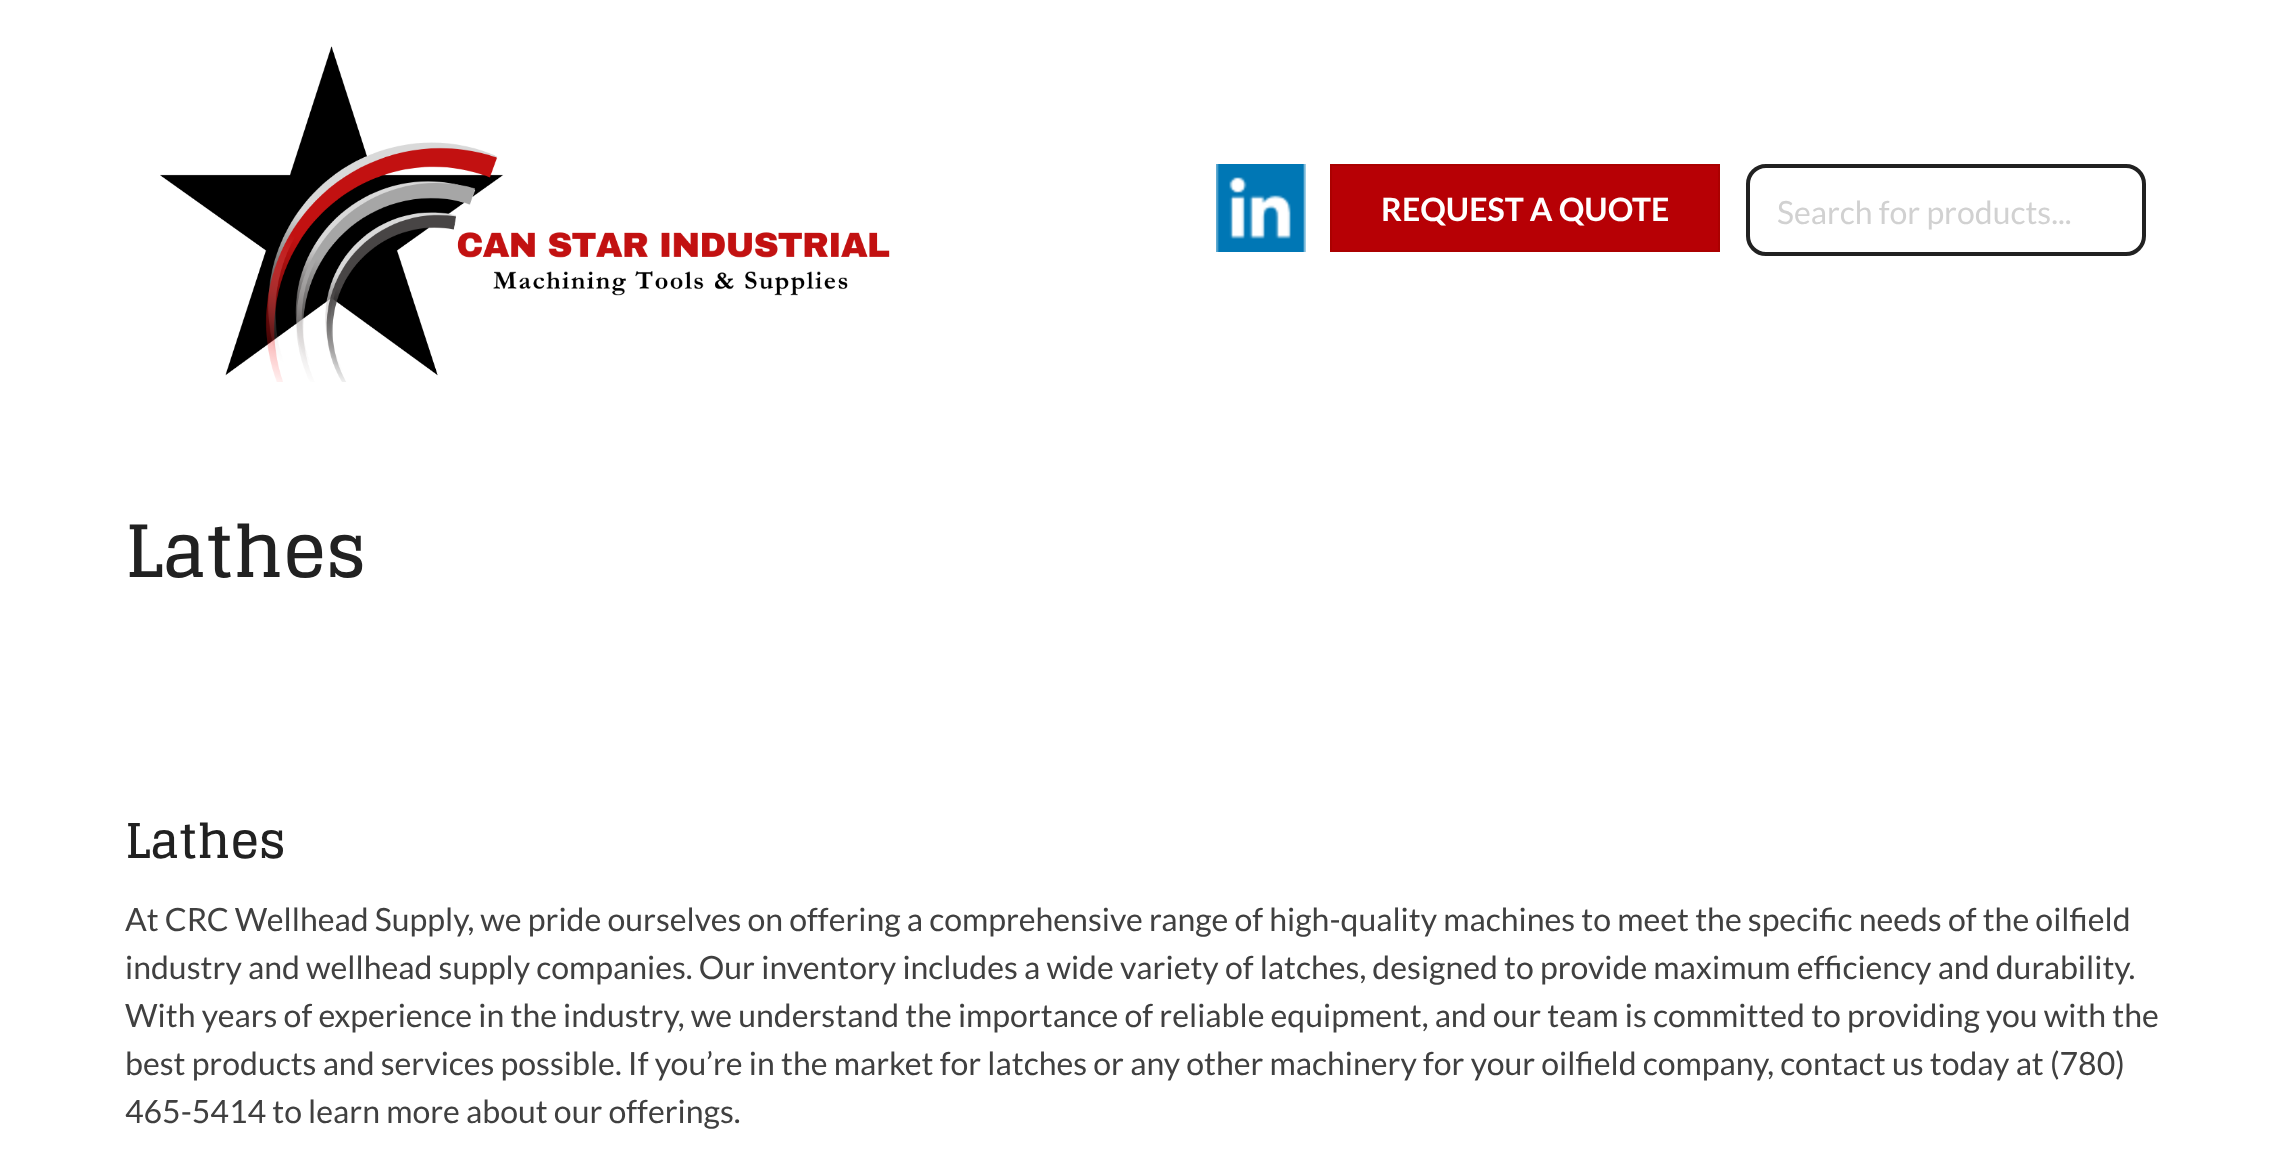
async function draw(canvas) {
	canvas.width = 2289;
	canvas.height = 1151;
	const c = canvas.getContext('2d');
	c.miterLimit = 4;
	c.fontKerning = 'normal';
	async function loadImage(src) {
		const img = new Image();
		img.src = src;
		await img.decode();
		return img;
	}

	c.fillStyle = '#fff';
	c.fillRect(0, 0, 2289, 1151);
	c.drawImage(await loadImage('img1.png'), 160, 46, 730, 336);
	c.drawImage(await loadImage('img2.png'), 1216, 164, 90, 88);
	c.fillStyle = '#b70005';
	c.beginPath();
	c.rect(1331, 165, 388, 86);
	c.fill();
	c.strokeStyle = '#ab0000';
	c.lineWidth = 2;
	c.stroke();
	c.font = 'bold 32px Lato';
	c.fillStyle = '#fff';
	c.fillText('REQUEST A QUOTE', 1381, 221);
	c.beginPath();
	c.roundRect(1748, 166, 396, 88, 18);
	c.strokeStyle = '#212121';
	c.lineWidth = 4;
	c.stroke();
	c.font = '32px Lato';
	c.fillStyle = '#d1d1d1';
	c.fillText('Search for products...', 1777, 224);
	c.font = 'bold 72px Glegoo';
	c.fillStyle = '#212121';
	c.fillText('Lathes', 125, 577);
	c.font = 'bold 48px Glegoo';
	c.fillText('Lathes', 125, 858);
	c.font = '32px Lato';
	c.fillStyle = '#404040';
	for (const [text, x, y] of [
		['At CRC Wellhead Supply, we pride ourselves on offering a comprehensive range of high-quality machines to meet the specific needs of the oilfield', 125, 931],
		['industry and wellhead supply companies. Our inventory includes a wide variety of latches, designed to provide maximum efficiency and durability.', 125, 979],
		['With years of experience in the industry, we understand the importance of reliable equipment, and our team is committed to providing you with the', 125, 1027],
		['best products and services possible. If you’re in the market for latches or any other machinery for your oilfield company, contact us today at (780)', 125, 1075],
		['465-5414 to learn more about our offerings.', 125, 1123],
	]) {
		c.fillText(text, x, y);
	}
}

draw(document.querySelector('canvas'));
